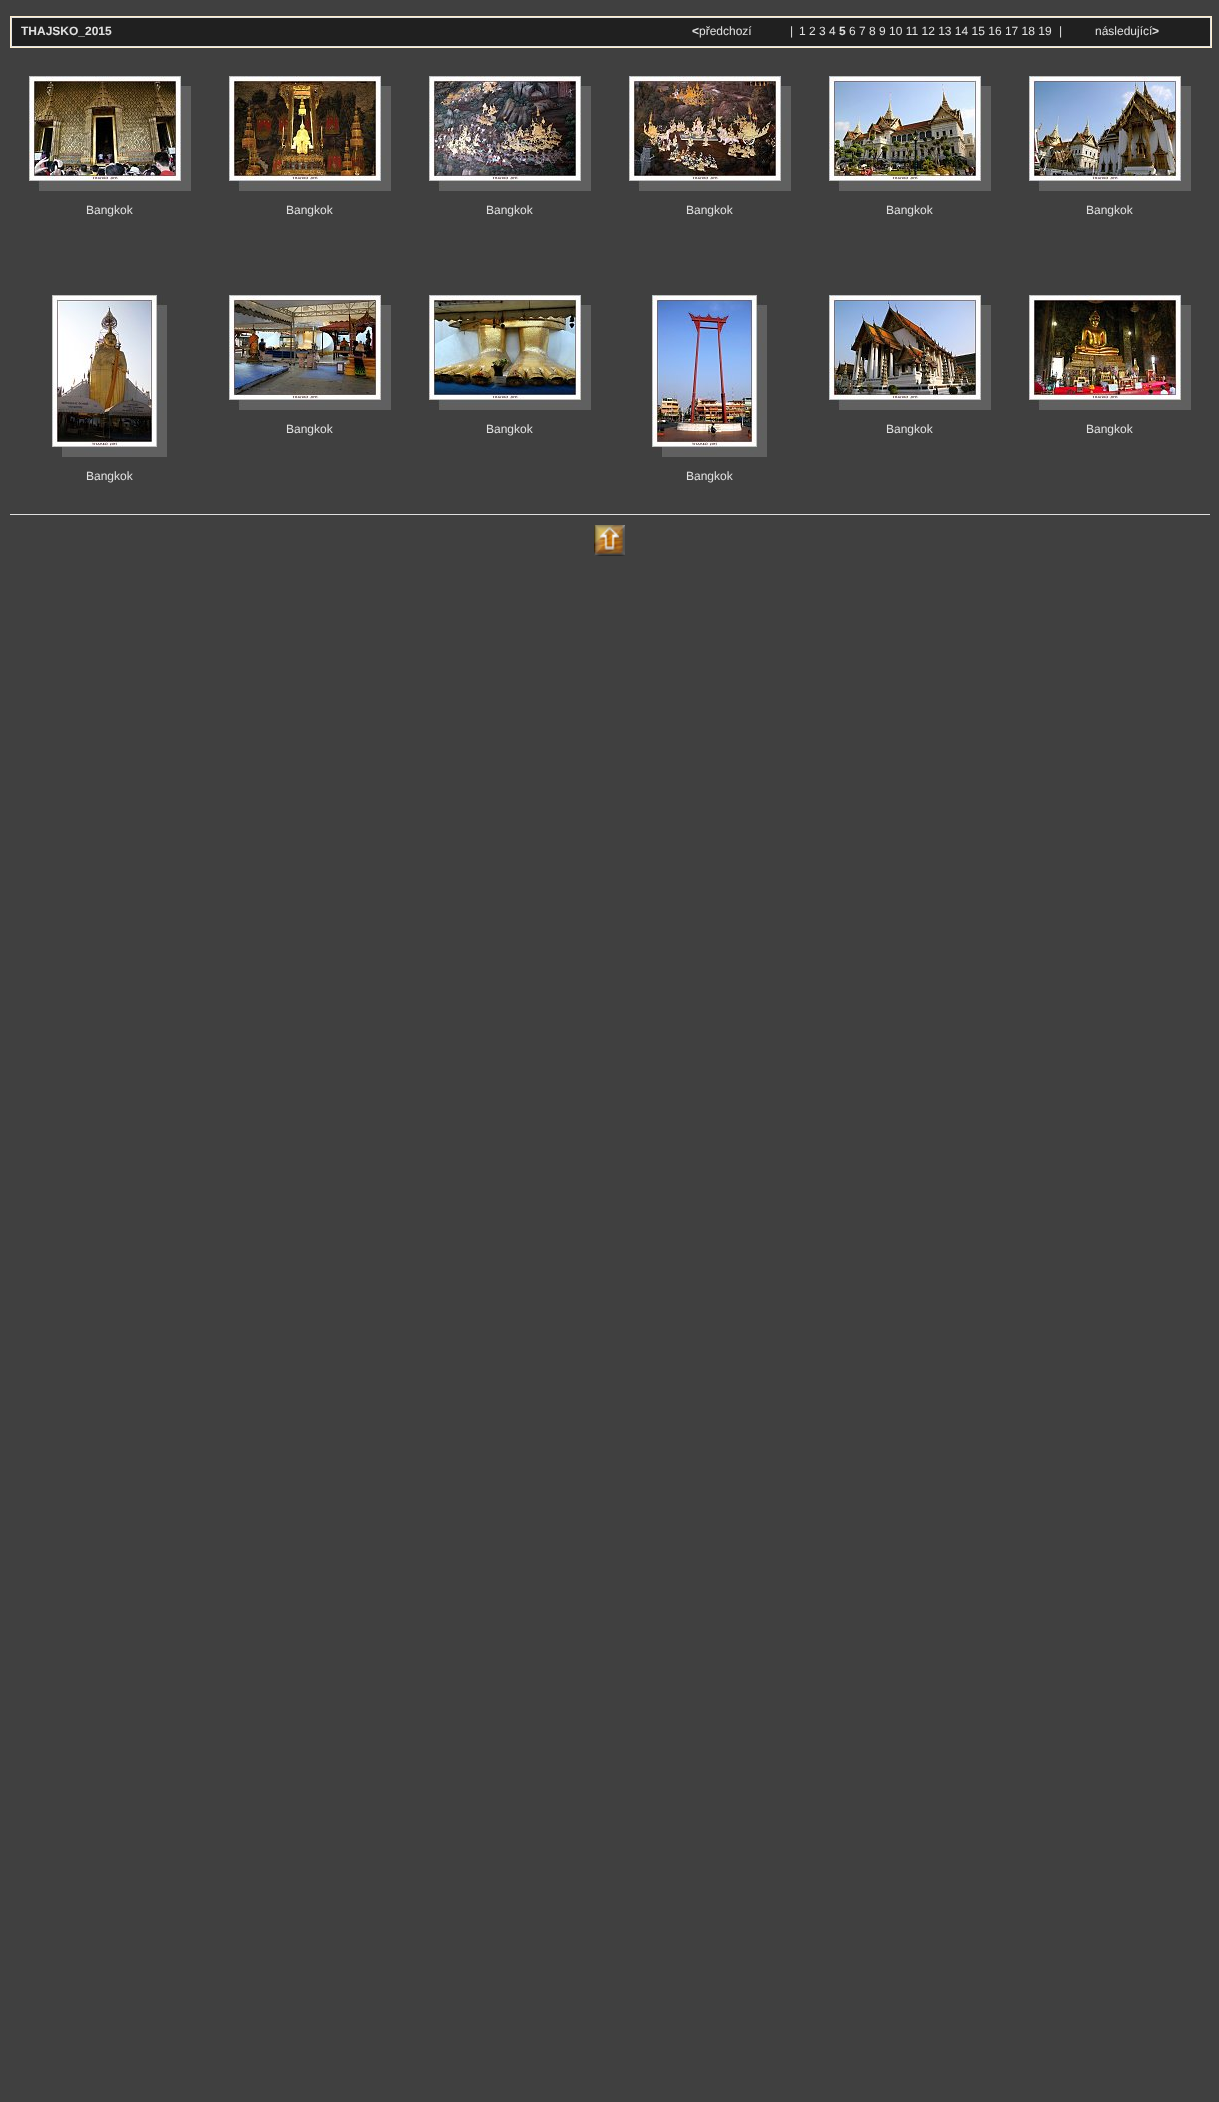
async function draw(canvas) {
	canvas.width = 1219;
	canvas.height = 2102;
	const c = canvas.getContext('2d');
	c.miterLimit = 4;
	c.fontKerning = 'normal';
	async function loadImage(src) {
		const img = new Image();
		img.src = src;
		await img.decode();
		return img;
	}

	c.fillStyle = '#404040';
	c.fillRect(0, 0, 1219, 2102);
	c.fillStyle = '#202020';
	c.fillRect(12, 18, 1198, 28);
	c.strokeStyle = '#feeece';
	c.strokeRect(10.5, 16.5, 1201, 31);
	c.strokeStyle = '#e0e0e0';
	c.strokeRect(11.5, 17.5, 1199, 29);
	c.font = 'bold 12px Liberation Sans';
	c.fillStyle = '#e0e0e0';
	c.fillText('THAJSKO_2015', 21, 35);
	c.fillText('<', 692, 35);
	c.font = '12px Liberation Sans';
	for (const [text, x, y] of [
		['předchozí', 699, 35],
		['|', 790, 35],
		['1 2 3 4', 799, 35],
	]) {
		c.fillText(text, x, y);
	}
	c.font = 'bold 12px Liberation Sans';
	c.fillText('5', 839, 35);
	c.font = '12px Liberation Sans';
	for (const [text, x, y] of [
		['6 7 8 9 10 11 12 13 14 15 16 17 18 19', 849, 35],
		['|', 1059, 35],
		['následující', 1095, 35],
	]) {
		c.fillText(text, x, y);
	}
	c.font = 'bold 12px Liberation Sans';
	c.fillText('>', 1152, 35);
	c.drawImage(await loadImage('img1.png'), 29, 76, 162, 115);
	c.font = '12px Liberation Sans';
	c.fillText('Bangkok', 86, 214);
	c.drawImage(await loadImage('img2.png'), 229, 76, 162, 115);
	c.fillText('Bangkok', 286, 214);
	c.drawImage(await loadImage('img3.png'), 429, 76, 162, 115);
	c.fillText('Bangkok', 486, 214);
	c.drawImage(await loadImage('img4.png'), 629, 76, 162, 115);
	c.fillText('Bangkok', 686, 214);
	c.drawImage(await loadImage('img5.png'), 829, 76, 162, 115);
	c.fillText('Bangkok', 886, 214);
	c.drawImage(await loadImage('img6.png'), 1029, 76, 162, 115);
	c.fillText('Bangkok', 1086, 214);
	c.drawImage(await loadImage('img7.png'), 229, 295, 162, 115);
	c.fillText('Bangkok', 286, 433);
	c.drawImage(await loadImage('img8.png'), 429, 295, 162, 115);
	c.fillText('Bangkok', 486, 433);
	c.drawImage(await loadImage('img9.png'), 829, 295, 162, 115);
	c.fillText('Bangkok', 886, 433);
	c.drawImage(await loadImage('img10.png'), 1029, 295, 162, 115);
	c.fillText('Bangkok', 1086, 433);
	c.drawImage(await loadImage('img11.png'), 52, 295, 115, 162);
	c.fillText('Bangkok', 86, 480);
	c.drawImage(await loadImage('img12.png'), 652, 295, 115, 162);
	c.fillText('Bangkok', 686, 480);
	c.fillRect(10, 514, 1200, 1);
	c.drawImage(await loadImage('img13.png'), 594, 525, 31, 31);
}

draw(document.querySelector('canvas'));
